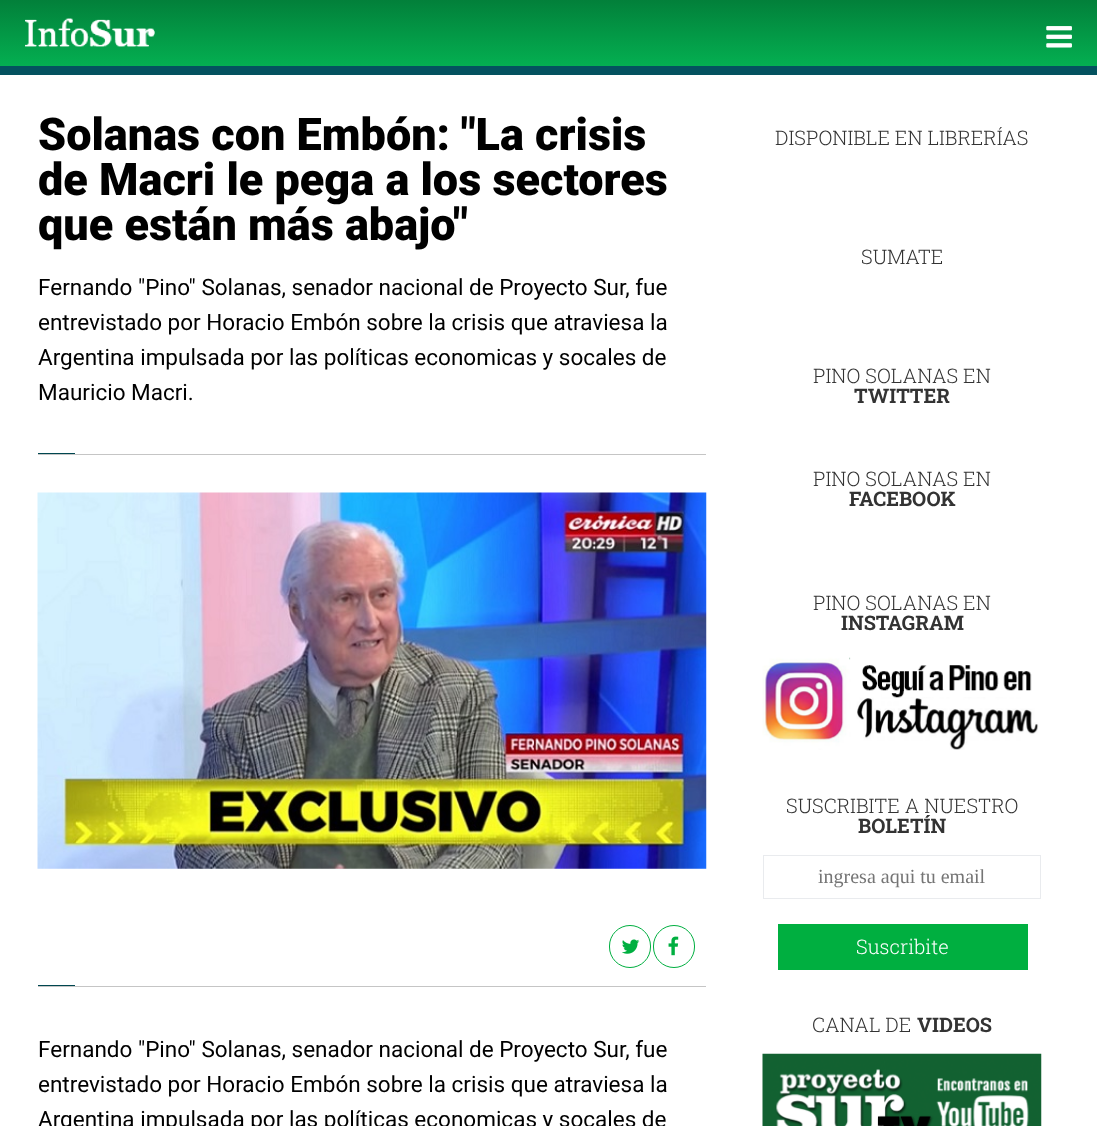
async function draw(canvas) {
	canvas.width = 1097;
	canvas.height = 1126;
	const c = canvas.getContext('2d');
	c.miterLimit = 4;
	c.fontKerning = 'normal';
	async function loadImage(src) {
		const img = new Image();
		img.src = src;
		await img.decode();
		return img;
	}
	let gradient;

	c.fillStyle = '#fff';
	c.fillRect(0, 0, 1097, 1126);
	gradient = c.createLinearGradient(549, 0, 549, 66);
	gradient.addColorStop(0, '#02803a');
	gradient.addColorStop(1, '#04af51');
	c.fillStyle = gradient;
	c.fillRect(0, 0, 1097, 66);
	c.fillStyle = '#04525f';
	c.fillRect(0, 66, 1097, 9);
	c.drawImage(await loadImage('img1.png'), 25, 18, 130, 29);
	c.drawImage(await loadImage('img2.png'), 25, 18, 130, 29);
	c.drawImage(await loadImage('img3.png'), 1046, 26, 26, 22);
	c.font = '900 45px Roboto';
	c.fillStyle = '#000';
	for (const [text, x, y] of [
		['Solanas con Embón: "La crisis', 38, 150],
		['de Macri le pega a los sectores', 38, 195],
		['que están más abajo"', 38, 240],
	]) {
		c.fillText(text, x, y);
	}
	c.font = '22.5px Roboto';
	for (const [text, x, y] of [
		['Fernando "Pino" Solanas, senador nacional de Proyecto Sur, fue', 38, 295],
		['entrevistado por Horacio Embón sobre la crisis que atraviesa la', 38, 330],
		['Argentina impulsada por las políticas economicas y socales de', 38, 365],
		['Mauricio Macri.', 38, 400],
	]) {
		c.fillText(text, x, y);
	}
	for (const [x, y, w, h, color] of [
		[38, 454, 668, 1, '#c5c5c5'],
		[38, 986, 668, 1, '#c5c5c5'],
		[38, 453, 37, 1, '#004750'],
	]) {
		c.fillStyle = color;
		c.fillRect(x, y, w, h);
	}
	c.drawImage(await loadImage('img4.png'), 37, 492, 670, 377);
	c.beginPath();
	c.roundRect(609.5, 925.5, 41, 42, 20.5);
	c.strokeStyle = '#00af40';
	c.stroke();
	c.drawImage(await loadImage('img5.png'), 622, 939, 18, 15);
	c.beginPath();
	c.roundRect(653.5, 925.5, 41, 42, 20.5);
	c.stroke();
	c.drawImage(await loadImage('img6.png'), 668, 936, 11, 20);
	c.fillRect(38, 985, 37, 1);
	c.fillStyle = '#000';
	for (const [text, x, y] of [
		['Fernando "Pino" Solanas, senador nacional de Proyecto Sur, fue', 38, 1057],
		['entrevistado por Horacio Embón sobre la crisis que atraviesa la', 38, 1092],
		['Argentina impulsada por las políticas economicas y socales de', 38, 1127],
	]) {
		c.fillText(text, x, y);
	}
	c.font = '300 20px Roboto Slab';
	c.fillStyle = '#333';
	for (const [text, x, y] of [
		['DISPONIBLE EN LIBRERÍAS', 775, 145],
		['SUMATE', 861, 264],
		['PINO SOLANAS EN', 813, 383],
	]) {
		c.fillText(text, x, y);
	}
	c.font = 'bold 20px Roboto Slab';
	c.fillText('TWITTER', 854, 403);
	c.font = '300 20px Roboto Slab';
	c.fillText('PINO SOLANAS EN', 813, 486);
	c.font = 'bold 20px Roboto Slab';
	c.fillText('FACEBOOK', 849, 506);
	c.font = '300 20px Roboto Slab';
	c.fillText('PINO SOLANAS EN', 813, 610);
	c.font = 'bold 20px Roboto Slab';
	c.fillText('INSTAGRAM', 841, 630);
	c.drawImage(await loadImage('img7.png'), 762, 657, 277, 93);
	c.font = '300 20px Roboto Slab';
	c.fillText('SUSCRIBITE A NUESTRO', 786, 813);
	c.font = 'bold 20px Roboto Slab';
	c.fillText('BOLETÍN', 858, 833);
	c.strokeStyle = '#e9ebee';
	c.strokeRect(763.5, 855.5, 277, 43);
	c.font = '20px Liberation Serif';
	c.fillStyle = '#757575';
	c.fillText('ingresa aqui tu email', 818, 883);
	c.fillStyle = '#00af40';
	c.fillRect(778, 924, 250, 46);
	c.font = '300 20px Roboto Slab';
	c.fillStyle = '#fff';
	c.fillText('Suscribite', 856, 954);
	c.fillStyle = '#333';
	c.fillText('CANAL DE', 812, 1032);
	c.font = 'bold 20px Roboto Slab';
	c.fillText('VIDEOS', 917, 1032);
	c.drawImage(await loadImage('img8.png'), 762, 1053, 280, 73);
}

draw(document.querySelector('canvas'));
